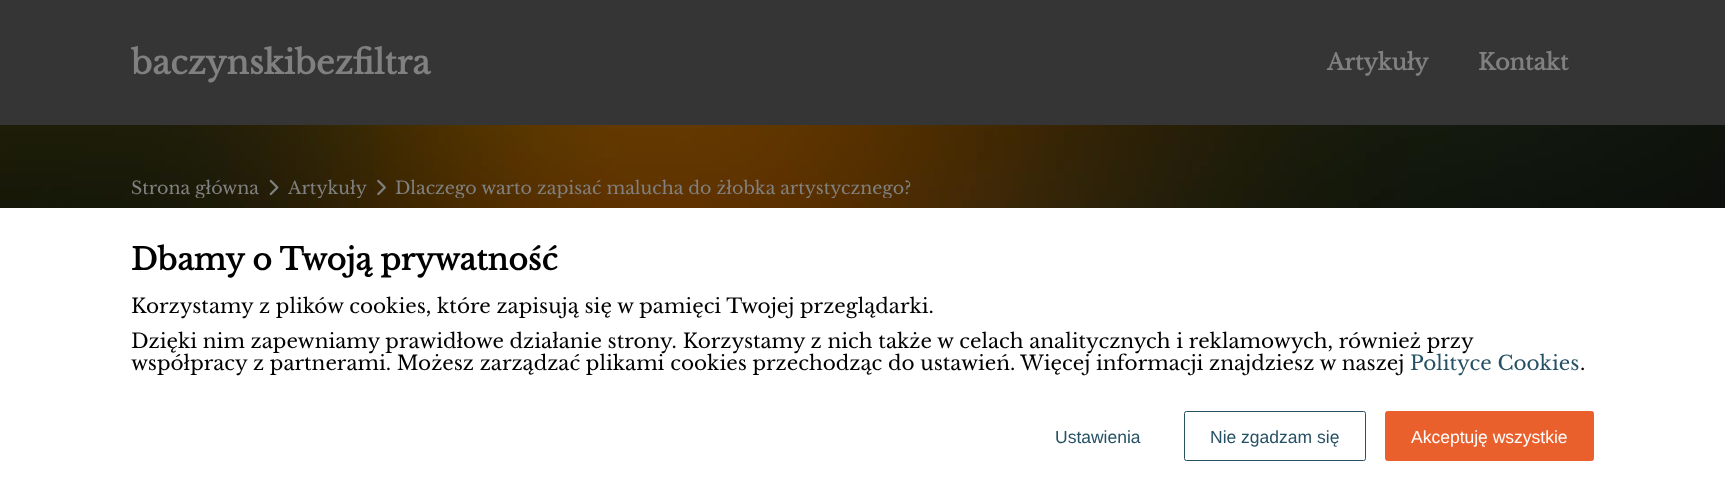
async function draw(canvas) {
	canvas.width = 1725;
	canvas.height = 498;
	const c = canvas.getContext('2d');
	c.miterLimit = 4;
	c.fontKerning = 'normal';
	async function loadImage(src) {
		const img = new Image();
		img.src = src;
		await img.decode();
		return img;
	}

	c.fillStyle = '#353535';
	c.fillRect(0, 0, 1725, 498);
	c.font = 'bold 32.5px Libre Baskerville';
	c.fillStyle = '#808080';
	c.fillText('baczynskibezfiltra', 131, 74);
	c.font = 'bold 22.5px Libre Baskerville';
	c.fillText('Artykuły', 1327, 70);
	c.fillText('Kontakt', 1478, 70);
	c.drawImage(await loadImage('img1.png'), 0, 125, 1725, 83);
	c.save();
	c.beginPath();
	c.rect(131, 178, 1463, 20);
	c.clip();
	c.font = '17.5px Libre Baskerville';
	c.fillText('Strona główna', 131, 194);
	c.restore();
	c.drawImage(await loadImage('img2.png'), 269, 179, 10, 17);
	c.save();
	c.beginPath();
	c.rect(131, 178, 1463, 20);
	c.clip();
	c.font = '17.5px Libre Baskerville';
	c.fillText('Artykuły', 288, 194);
	c.restore();
	c.drawImage(await loadImage('img3.png'), 377, 179, 9, 17);
	c.save();
	c.beginPath();
	c.rect(131, 178, 1463, 20);
	c.clip();
	c.font = '17.5px Libre Baskerville';
	c.fillText('Dlaczego warto zapisać malucha do żłobka artystycznego?', 395, 194);
	c.restore();
	c.fillStyle = '#fff';
	c.fillRect(0, 208, 1725, 290);
	c.font = 'bold 30px Libre Baskerville';
	c.fillStyle = '#000';
	c.fillText('Dbamy o Twoją prywatność', 131, 270);
	c.font = '20px Libre Baskerville';
	for (const [text, x, y] of [
		['Korzystamy z plików cookies, które zapisują się w pamięci Twojej przeglądarki.', 131, 313],
		['Dzięki nim zapewniamy prawidłowe działanie strony. Korzystamy z nich także w celach analitycznych i reklamowych, również przy', 131, 348],
		['współpracy z partnerami. Możesz zarządzać plikami cookies przechodząc do ustawień. Więcej informacji znajdziesz w naszej', 131, 370],
	]) {
		c.fillText(text, x, y);
	}
	c.fillStyle = '#265165';
	c.fillText('Polityce Cookies', 1410, 370);
	c.fillStyle = '#000';
	c.fillText('.', 1580, 370);
	c.font = '17.5px Liberation Sans';
	c.fillStyle = '#265165';
	c.fillText('Ustawienia', 1055, 443);
	c.beginPath();
	c.roundRect(1184.5, 411.5, 181, 49, 2);
	c.strokeStyle = '#265165';
	c.stroke();
	c.fillText('Nie zgadzam się', 1210, 443);
	c.fillStyle = '#e9602d';
	c.beginPath();
	c.roundRect(1385.5, 411.5, 208, 49, 2);
	c.fill();
	c.strokeStyle = '#e9602d';
	c.stroke();
	c.fillStyle = '#fff';
	c.fillText('Akceptuję wszystkie', 1411, 443);
}

draw(document.querySelector('canvas'));
